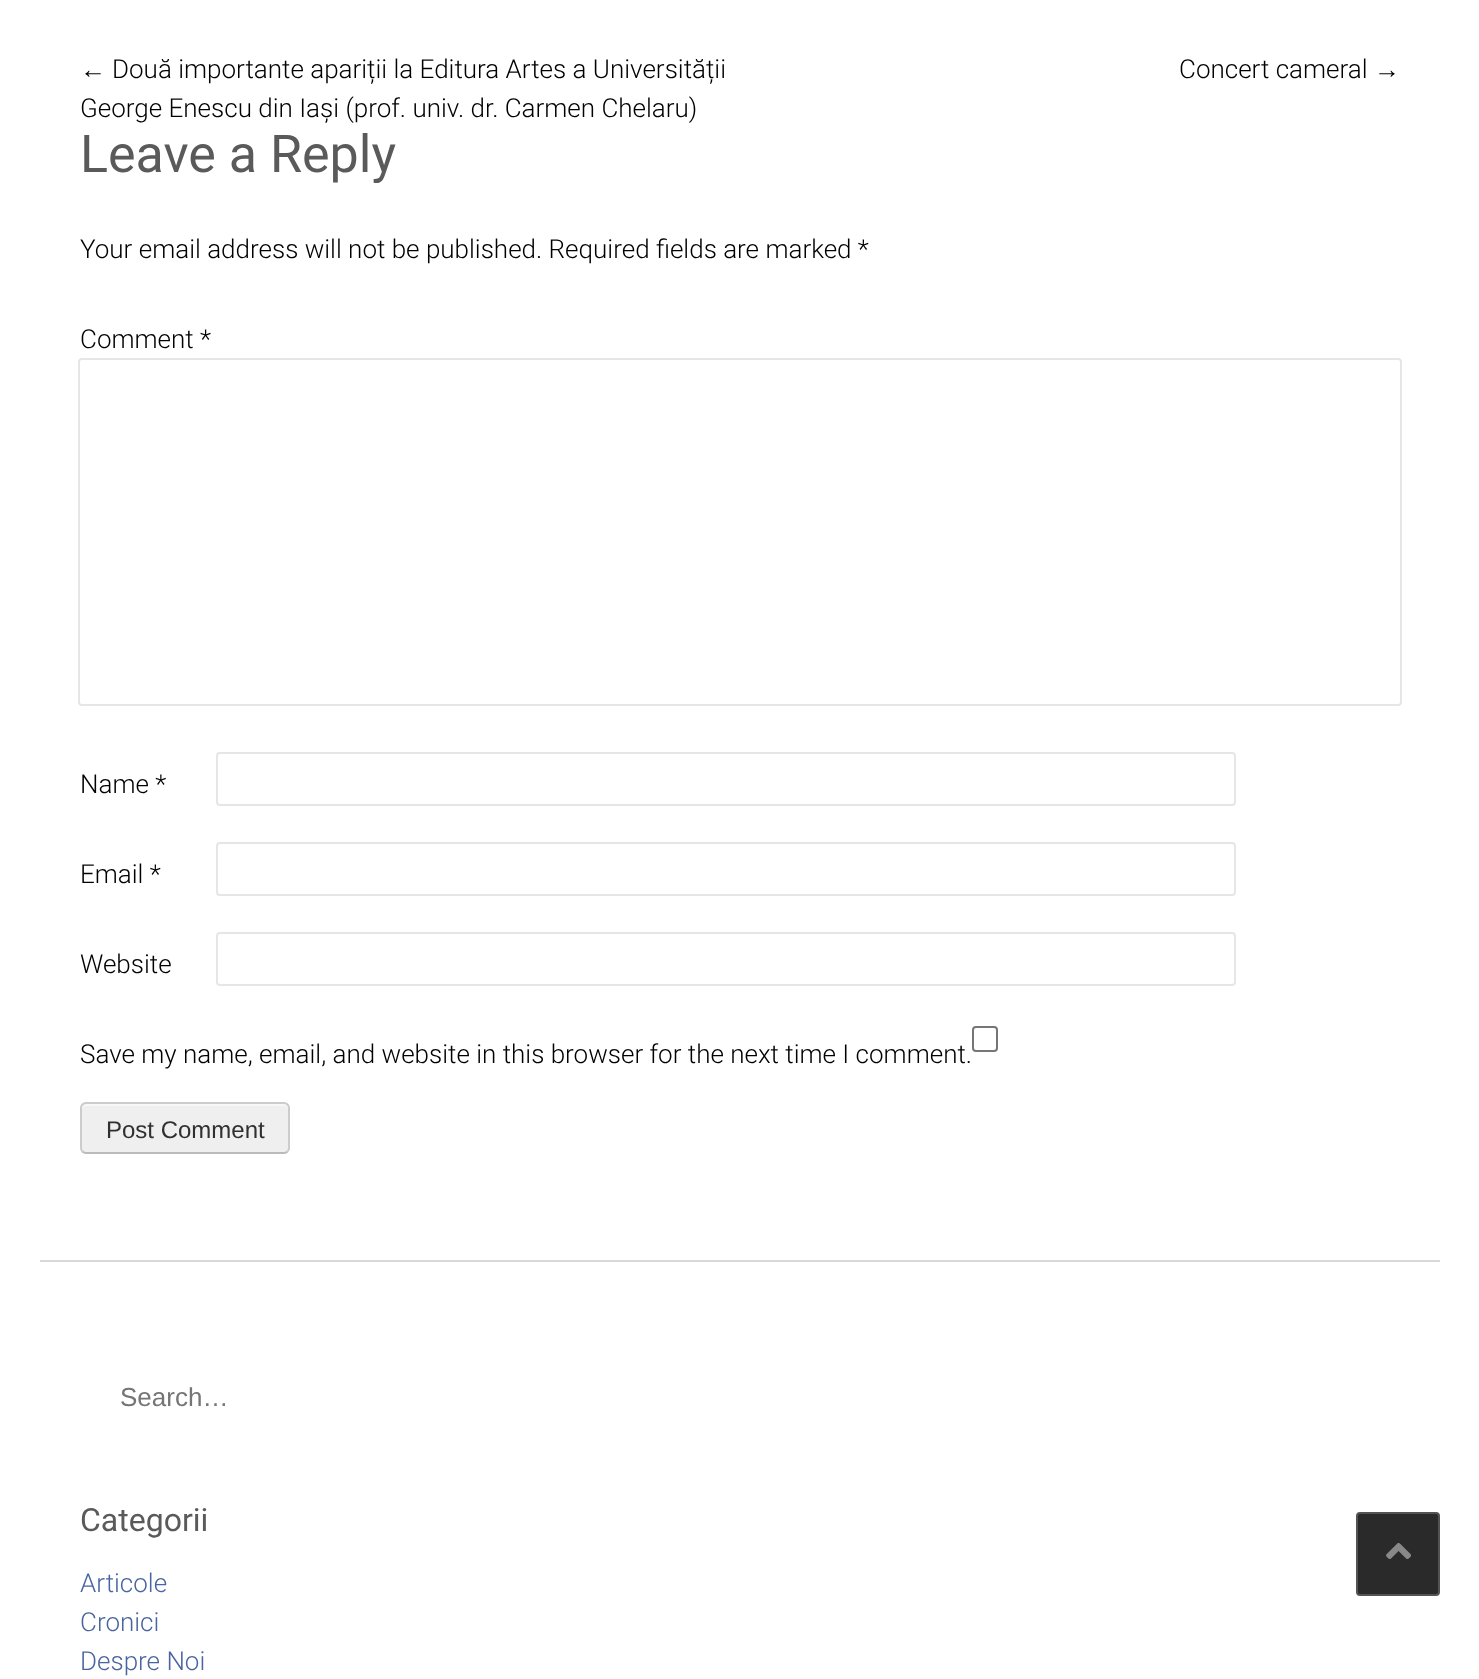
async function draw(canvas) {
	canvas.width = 1479;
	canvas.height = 1679;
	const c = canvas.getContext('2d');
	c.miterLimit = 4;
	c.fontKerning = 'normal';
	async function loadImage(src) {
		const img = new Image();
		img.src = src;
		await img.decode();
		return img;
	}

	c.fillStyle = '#fff';
	c.fillRect(0, 0, 1479, 1679);
	c.font = '26px Liberation Sans';
	c.fillStyle = '#000';
	c.fillText('←', 80, 78);
	c.font = '300 26px Roboto';
	for (const [text, x, y] of [
		['Două importante apariții la Editura Artes a Universității', 112, 78],
		['George Enescu din Iași (prof. univ. dr. Carmen Chelaru)', 80, 117],
		['Concert cameral', 1179, 78],
	]) {
		c.fillText(text, x, y);
	}
	c.font = '26px Liberation Sans';
	c.fillText('→', 1374, 78);
	c.font = '52px Roboto';
	c.fillStyle = '#5a5a5a';
	c.fillText('Leave a Reply', 80, 172);
	c.font = '300 26px Roboto';
	c.fillStyle = '#000';
	c.fillText('Your email address will not be published. Required fields are marked *', 80, 258);
	c.fillText('Comment *', 80, 348);
	c.beginPath();
	c.roundRect(79, 359, 1322, 346, 3);
	c.strokeStyle = '#e6e6e6';
	c.lineWidth = 2;
	c.stroke();
	c.fillText('Name *', 80, 793);
	c.beginPath();
	c.roundRect(217, 753, 1018, 52, 3);
	c.stroke();
	c.fillText('Email *', 80, 883);
	c.beginPath();
	c.roundRect(217, 843, 1018, 52, 3);
	c.stroke();
	c.fillText('Website', 80, 973);
	c.beginPath();
	c.roundRect(217, 933, 1018, 52, 3);
	c.stroke();
	c.beginPath();
	c.roundRect(973, 1027, 24, 24, 3);
	c.strokeStyle = '#767676';
	c.stroke();
	c.fillText('Save my name, email, and website in this browser for the next time I comment.', 80, 1063);
	c.fillStyle = '#efefef';
	c.beginPath();
	c.roundRect(80, 1102, 210, 52, 6);
	c.fill();
	c.fillStyle = '#f7f7f7';
	c.beginPath();
	c.moveTo(86, 1106);
	c.lineTo(284, 1106);
	c.bezierCurveTo(286, 1106, 288, 1108, 288, 1110);
	c.bezierCurveTo(288, 1107, 288, 1105, 285, 1104);
	c.lineTo(86, 1104);
	c.bezierCurveTo(82, 1104, 82, 1107, 82, 1110);
	c.bezierCurveTo(82, 1108, 84, 1106, 86, 1106);
	c.closePath();
	c.fill();
	c.beginPath();
	c.moveTo(287.5, 1151.5);
	c.bezierCurveTo(286.5, 1152.5, 285.5, 1153, 284, 1153);
	c.lineTo(86, 1153);
	c.bezierCurveTo(84.5, 1153, 83.5, 1152.5, 82.5, 1151.5);
	c.strokeStyle = '#bbb';
	c.stroke();
	c.beginPath();
	c.moveTo(82.5, 1151.5);
	c.bezierCurveTo(81.5, 1150.5, 81, 1149.5, 81, 1148);
	c.lineTo(81, 1108);
	c.bezierCurveTo(81, 1106.5, 81.5, 1105.5, 82.5, 1104.5);
	c.bezierCurveTo(83.5, 1103.5, 84.5, 1103, 86, 1103);
	c.lineTo(284, 1103);
	c.bezierCurveTo(285.5, 1103, 286.5, 1103.5, 287.5, 1104.5);
	c.bezierCurveTo(288.5, 1105.5, 289, 1106.5, 289, 1108);
	c.lineTo(289, 1148);
	c.bezierCurveTo(289, 1149.5, 288.5, 1150.5, 287.5, 1151.5);
	c.strokeStyle = '#ccc';
	c.stroke();
	c.font = '24px Liberation Sans';
	c.fillStyle = '#303030';
	c.fillText('Post Comment', 106, 1138);
	c.fillStyle = '#d8d8d8';
	c.fillRect(40, 1260, 1400, 2);
	c.font = '26px Liberation Sans';
	c.fillStyle = '#757575';
	c.fillText('Search…', 120, 1406);
	c.font = '32px Roboto';
	c.fillStyle = '#5a5a5a';
	c.fillText('Categorii', 80, 1531);
	c.font = '300 26px Roboto';
	c.fillStyle = '#4965a0';
	for (const [text, x, y] of [
		['Articole', 80, 1592],
		['Cronici', 80, 1631],
		['Despre Noi', 80, 1670],
	]) {
		c.fillText(text, x, y);
	}
	c.fillStyle = '#2a2a2a';
	c.beginPath();
	c.roundRect(1357, 1513, 82, 82, 3);
	c.fill();
	c.strokeStyle = '#535353';
	c.stroke();
	c.drawImage(await loadImage('img1.png'), 1386, 1543, 25, 16);
}

draw(document.querySelector('canvas'));
